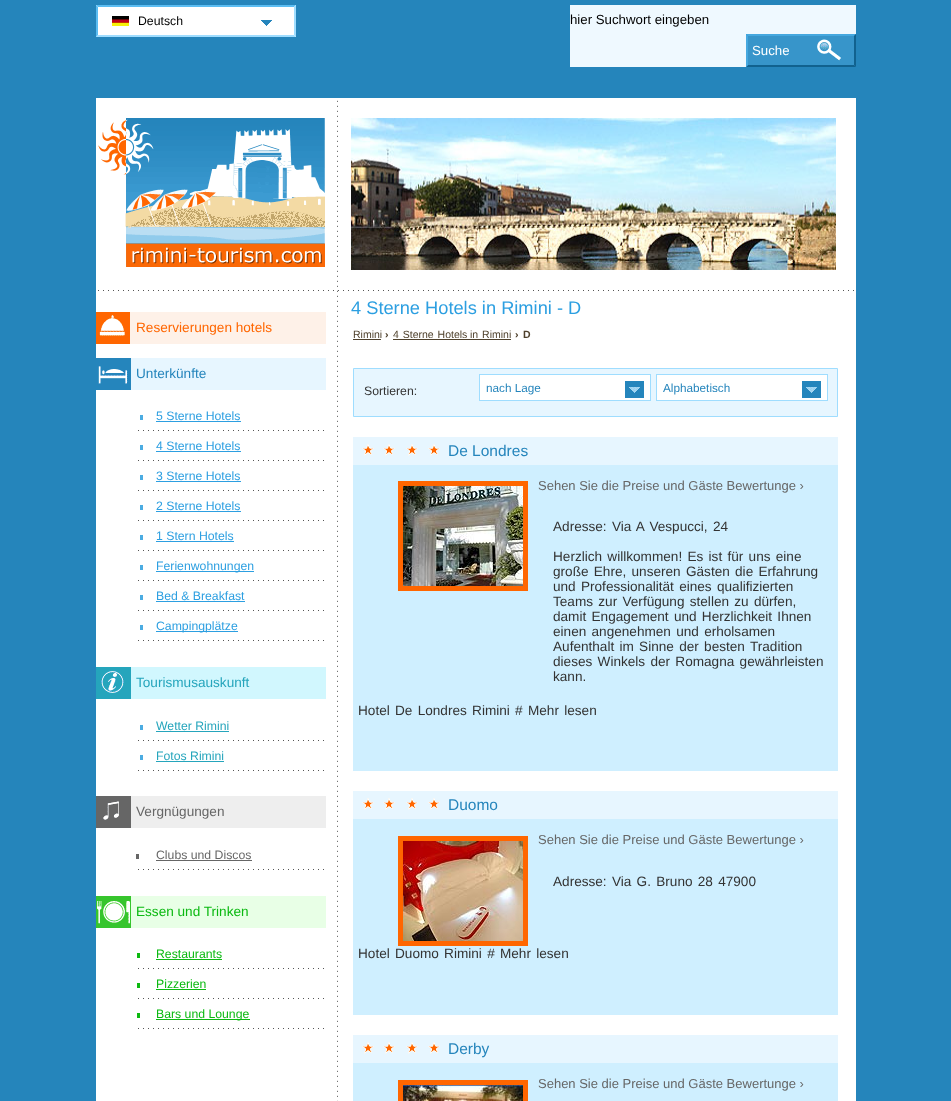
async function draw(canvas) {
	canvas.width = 951;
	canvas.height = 1101;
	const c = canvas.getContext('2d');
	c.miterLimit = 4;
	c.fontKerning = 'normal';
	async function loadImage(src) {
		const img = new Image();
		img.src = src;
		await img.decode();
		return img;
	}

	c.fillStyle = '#2585bb';
	c.fillRect(0, 0, 951, 1101);
	c.fillStyle = '#fff';
	c.fillRect(96, 5, 200, 32);
	c.drawImage(await loadImage('img1.png'), 261, 20, 11, 6);
	c.drawImage(await loadImage('img2.png'), 112, 16, 17, 10);
	c.fillStyle = '#5bbdf2';
	c.beginPath();
	c.moveTo(96, 5);
	c.lineTo(296, 5);
	c.lineTo(294, 7);
	c.lineTo(98, 7);
	c.closePath();
	c.fill();
	c.fillStyle = '#9fddff';
	c.beginPath();
	c.moveTo(296, 5);
	c.lineTo(296, 37);
	c.lineTo(294, 35);
	c.lineTo(294, 7);
	c.closePath();
	c.fill();
	c.beginPath();
	c.moveTo(296, 37);
	c.lineTo(96, 37);
	c.lineTo(98, 35);
	c.lineTo(294, 35);
	c.closePath();
	c.fill();
	c.fillStyle = '#5bbdf2';
	c.beginPath();
	c.moveTo(96, 37);
	c.lineTo(96, 5);
	c.lineTo(98, 7);
	c.lineTo(98, 35);
	c.closePath();
	c.fill();
	c.font = '12.25px Liberation Sans';
	c.fillStyle = '#000';
	c.fillText('Deutsch', 138, 25);
	c.fillStyle = '#eff9ff';
	c.fillRect(570, 5, 286, 62);
	c.font = '13.25px Liberation Sans';
	c.fillStyle = '#000';
	c.fillText('hier Suchwort eingeben', 570, 24);
	c.fillStyle = '#3795ca';
	c.fillRect(746, 34, 110, 33);
	c.drawImage(await loadImage('img3.png'), 817, 39, 24, 22);
	c.fillStyle = '#45a8df';
	c.beginPath();
	c.moveTo(746, 34);
	c.lineTo(856, 34);
	c.lineTo(854, 36);
	c.lineTo(748, 36);
	c.closePath();
	c.fill();
	c.fillStyle = '#11628f';
	c.beginPath();
	c.moveTo(856, 34);
	c.lineTo(856, 67);
	c.lineTo(854, 65);
	c.lineTo(854, 36);
	c.closePath();
	c.fill();
	c.beginPath();
	c.moveTo(856, 67);
	c.lineTo(746, 67);
	c.lineTo(748, 65);
	c.lineTo(854, 65);
	c.closePath();
	c.fill();
	c.fillStyle = '#45a8df';
	c.beginPath();
	c.moveTo(746, 67);
	c.lineTo(746, 34);
	c.lineTo(748, 36);
	c.lineTo(748, 65);
	c.closePath();
	c.fill();
	c.fillStyle = '#fff';
	c.fillText('Suche', 752, 55);
	c.fillRect(96, 98, 760, 1003);
	c.drawImage(await loadImage('img4.png'), 337, 100, 1, 1001);
	c.drawImage(await loadImage('img5.png'), 98, 290, 756, 1);
	c.drawImage(await loadImage('img6.png'), 98, 118, 227, 149);
	c.drawImage(await loadImage('img7.png'), 351, 118, 485, 152);
	c.font = '18.25px Liberation Sans';
	c.fillStyle = '#2c9fe1';
	c.fillText('4 Sterne Hotels in Rimini - D', 351, 314);
	c.fillStyle = '#fef1e8';
	c.fillRect(130, 312, 196, 32);
	c.drawImage(await loadImage('img8.png'), 96, 312, 34, 32);
	c.font = '13.6px Liberation Sans';
	c.fillStyle = '#f60';
	c.fillText('Reservierungen hotels', 136, 332);
	c.fillStyle = '#e7f6ff';
	c.fillRect(131, 358, 195, 32);
	c.drawImage(await loadImage('img9.png'), 96, 358, 35, 32);
	c.fillStyle = '#2585bc';
	c.fillText('Unterkünfte', 136, 378);
	c.drawImage(await loadImage('img10.png'), 138, 430, 186, 1);
	c.fillStyle = '#4cace2';
	c.fillRect(140, 415, 3, 5);
	c.font = '12.25px Liberation Sans';
	c.fillStyle = '#2c9fe1';
	c.fillText('5 Sterne Hotels', 156, 420);
	c.fillRect(156, 421, 85, 1);
	c.drawImage(await loadImage('img10.png'), 138, 460, 186, 1);
	c.fillStyle = '#4cace2';
	c.fillRect(140, 445, 3, 5);
	c.fillStyle = '#2c9fe1';
	c.fillText('4 Sterne Hotels', 156, 450);
	c.fillRect(156, 451, 85, 1);
	c.drawImage(await loadImage('img10.png'), 138, 490, 186, 1);
	c.fillStyle = '#4cace2';
	c.fillRect(140, 475, 3, 5);
	c.fillStyle = '#2c9fe1';
	c.fillText('3 Sterne Hotels', 156, 480);
	c.fillRect(156, 481, 85, 1);
	c.drawImage(await loadImage('img10.png'), 138, 520, 186, 1);
	c.fillStyle = '#4cace2';
	c.fillRect(140, 505, 3, 5);
	c.fillStyle = '#2c9fe1';
	c.fillText('2 Sterne Hotels', 156, 510);
	c.fillRect(156, 511, 85, 1);
	c.drawImage(await loadImage('img10.png'), 138, 550, 186, 1);
	c.fillStyle = '#4cace2';
	c.fillRect(140, 535, 3, 5);
	c.fillStyle = '#2c9fe1';
	c.fillText('1 Stern Hotels', 156, 540);
	c.fillRect(156, 541, 78, 1);
	c.drawImage(await loadImage('img10.png'), 138, 580, 186, 1);
	c.fillStyle = '#4cace2';
	c.fillRect(140, 565, 3, 5);
	c.fillStyle = '#2c9fe1';
	c.fillRect(156, 571, 98, 1);
	c.fillText('Ferienwohnungen', 156, 570);
	c.drawImage(await loadImage('img10.png'), 138, 610, 186, 1);
	c.fillStyle = '#4cace2';
	c.fillRect(140, 595, 3, 5);
	c.fillStyle = '#2c9fe1';
	c.fillText('Bed & Breakfast', 156, 600);
	c.fillRect(156, 601, 89, 1);
	c.drawImage(await loadImage('img10.png'), 138, 640, 186, 1);
	c.fillStyle = '#4cace2';
	c.fillRect(140, 625, 3, 5);
	c.fillStyle = '#2c9fe1';
	c.fillRect(156, 631, 82, 1);
	c.fillText('Campingplätze', 156, 630);
	c.fillStyle = '#d1f7fe';
	c.fillRect(131, 667, 195, 32);
	c.drawImage(await loadImage('img11.png'), 96, 667, 35, 32);
	c.font = '13.6px Liberation Sans';
	c.fillStyle = '#25a5bc';
	c.fillText('Tourismusauskunft', 136, 687);
	c.drawImage(await loadImage('img10.png'), 138, 740, 186, 1);
	c.fillStyle = '#4cace2';
	c.fillRect(140, 725, 3, 5);
	c.font = '12.25px Liberation Sans';
	c.fillStyle = '#25a5bc';
	c.fillText('Wetter Rimini', 156, 730);
	c.fillRect(156, 731, 73, 1);
	c.drawImage(await loadImage('img10.png'), 138, 770, 186, 1);
	c.fillStyle = '#4cace2';
	c.fillRect(140, 755, 3, 5);
	c.fillStyle = '#25a5bc';
	c.fillText('Fotos Rimini', 156, 760);
	c.fillRect(156, 761, 68, 1);
	c.fillStyle = '#eee';
	c.fillRect(131, 796, 195, 32);
	c.drawImage(await loadImage('img12.png'), 96, 796, 35, 32);
	c.font = '13.6px Liberation Sans';
	c.fillStyle = '#666';
	c.fillText('Vergnügungen', 136, 816);
	c.drawImage(await loadImage('img10.png'), 138, 869, 186, 1);
	c.fillRect(136, 854, 3, 5);
	c.font = '12.25px Liberation Sans';
	c.fillText('Clubs und Discos', 156, 859);
	c.fillRect(156, 860, 96, 1);
	c.fillStyle = '#e8ffe6';
	c.fillRect(131, 896, 195, 32);
	c.drawImage(await loadImage('img13.png'), 96, 896, 35, 32);
	c.font = '13.6px Liberation Sans';
	c.fillStyle = '#0bb911';
	c.fillText('Essen und Trinken', 136, 916);
	c.drawImage(await loadImage('img10.png'), 138, 968, 186, 1);
	c.fillStyle = '#0cb911';
	c.fillRect(137, 953, 3, 5);
	c.font = '12.25px Liberation Sans';
	c.fillStyle = '#0bb911';
	c.fillText('Restaurants', 156, 958);
	c.fillRect(156, 959, 66, 1);
	c.drawImage(await loadImage('img10.png'), 138, 998, 186, 1);
	c.fillStyle = '#0cb911';
	c.fillRect(137, 983, 3, 5);
	c.fillStyle = '#0bb911';
	c.fillText('Pizzerien', 156, 988);
	c.fillRect(156, 989, 50, 1);
	c.drawImage(await loadImage('img10.png'), 138, 1028, 186, 1);
	c.fillStyle = '#0cb911';
	c.fillRect(137, 1013, 3, 5);
	c.fillStyle = '#0bb911';
	c.fillRect(156, 1019, 94, 1);
	c.fillText('Bars und Lounge', 156, 1018);
	c.font = '10.5px Liberation Sans';
	c.fillStyle = '#4f412c';
	c.fillText('Rimini', 353, 338);
	c.fillRect(353, 339, 28, 1);
	c.font = 'bold 10.5px Liberation Sans';
	c.fillText('›', 385, 338);
	c.wordSpacing = '1px';
	c.font = '10.5px Liberation Sans';
	c.fillText('4 Sterne Hotels', 393, 338);
	c.fillRect(393, 339, 118, 1);
	c.fillText('in Rimini', 470, 338);
	c.wordSpacing = '0px';
	c.font = 'bold 10.5px Liberation Sans';
	c.fillText('›', 515, 338);
	c.fillText('D', 523, 338);
	c.fillStyle = '#e7f6ff';
	c.beginPath();
	c.rect(353.5, 368.5, 484, 48);
	c.fill();
	c.strokeStyle = '#9fddff';
	c.stroke();
	c.font = '12.25px Liberation Sans';
	c.fillStyle = '#333';
	c.fillText('Sortieren:', 364, 395);
	c.fillStyle = '#fff';
	c.fillRect(480, 375, 170, 25);
	c.drawImage(await loadImage('img14.png'), 625, 381, 19, 17);
	c.strokeRect(479.5, 374.5, 171, 26);
	c.font = '11.75px Liberation Sans';
	c.fillStyle = '#2585bc';
	c.fillText('nach Lage', 486, 392);
	c.fillStyle = '#fff';
	c.fillRect(657, 375, 170, 25);
	c.drawImage(await loadImage('img14.png'), 802, 381, 19, 17);
	c.strokeRect(656.5, 374.5, 171, 26);
	c.fillStyle = '#2585bc';
	c.fillText('Alphabetisch', 663, 392);
	c.fillStyle = '#cfefff';
	c.fillRect(353, 465, 485, 306);
	c.fillStyle = '#e7f6ff';
	c.fillRect(353, 437, 485, 28);
	c.drawImage(await loadImage('img15.png'), 362, 444, 78, 12);
	c.font = '15.5px Liberation Sans';
	c.fillStyle = '#2585bc';
	c.fillText('De Londres', 448, 456);
	c.fillStyle = '#f60';
	c.fillRect(398, 481, 130, 110);
	c.drawImage(await loadImage('img16.png'), 403, 486, 120, 100);
	c.font = '13px Liberation Sans';
	c.fillStyle = '#666';
	c.fillText('Sehen Sie die Preise und Gäste Bewertunge ›', 538, 490);
	c.wordSpacing = '1.5px';
	c.font = '13.6px Liberation Sans';
	c.fillStyle = '#333';
	for (const [text, x, y] of [
		['Adresse: Via A Vespucci, 24', 553, 531],
		['Herzlich willkommen! Es ist für uns eine', 553, 561],
		['große Ehre, unseren Gästen die Erfahrung', 553, 576],
		['und Professionalität eines qualifizierten', 553, 591],
		['Teams zur Verfügung stellen zu dürfen,', 553, 606],
		['damit Engagement und Herzlichkeit Ihnen', 553, 621],
		['einen angenehmen und erholsamen', 553, 636],
		['Aufenthalt im Sinne der besten Tradition', 553, 651],
		['dieses Winkels der Romagna gewährleisten', 553, 666],
	]) {
		c.fillText(text, x, y);
	}
	c.wordSpacing = '0px';
	c.fillText('kann.', 553, 681);
	c.wordSpacing = '1.5px';
	c.fillText('Hotel De Londres Rimini # Mehr lesen', 358, 715);
	c.fillStyle = '#cfefff';
	c.fillRect(353, 819, 485, 196);
	c.fillStyle = '#e7f6ff';
	c.fillRect(353, 791, 485, 28);
	c.drawImage(await loadImage('img15.png'), 362, 798, 78, 12);
	c.wordSpacing = '0px';
	c.font = '15.5px Liberation Sans';
	c.fillStyle = '#2585bc';
	c.fillText('Duomo', 448, 810);
	c.fillStyle = '#f60';
	c.fillRect(398, 836, 130, 110);
	c.drawImage(await loadImage('img17.png'), 403, 841, 120, 100);
	c.font = '13px Liberation Sans';
	c.fillStyle = '#666';
	c.fillText('Sehen Sie die Preise und Gäste Bewertunge ›', 538, 844);
	c.wordSpacing = '1.5px';
	c.font = '13.6px Liberation Sans';
	c.fillStyle = '#333';
	c.fillText('Adresse: Via G. Bruno 28 47900', 553, 886);
	c.fillText('Hotel Duomo Rimini # Mehr lesen', 358, 958);
	c.fillStyle = '#cfefff';
	c.fillRect(353, 1063, 485, 38);
	c.fillStyle = '#e7f6ff';
	c.fillRect(353, 1035, 485, 28);
	c.drawImage(await loadImage('img15.png'), 362, 1042, 78, 12);
	c.wordSpacing = '0px';
	c.font = '15.5px Liberation Sans';
	c.fillStyle = '#2585bc';
	c.fillText('Derby', 448, 1054);
	c.fillStyle = '#f60';
	c.fillRect(398, 1080, 130, 21);
	c.drawImage(await loadImage('img18.png'), 403, 1085, 120, 16);
	c.font = '13px Liberation Sans';
	c.fillStyle = '#666';
	c.fillText('Sehen Sie die Preise und Gäste Bewertunge ›', 538, 1088);
}

draw(document.querySelector('canvas'));
